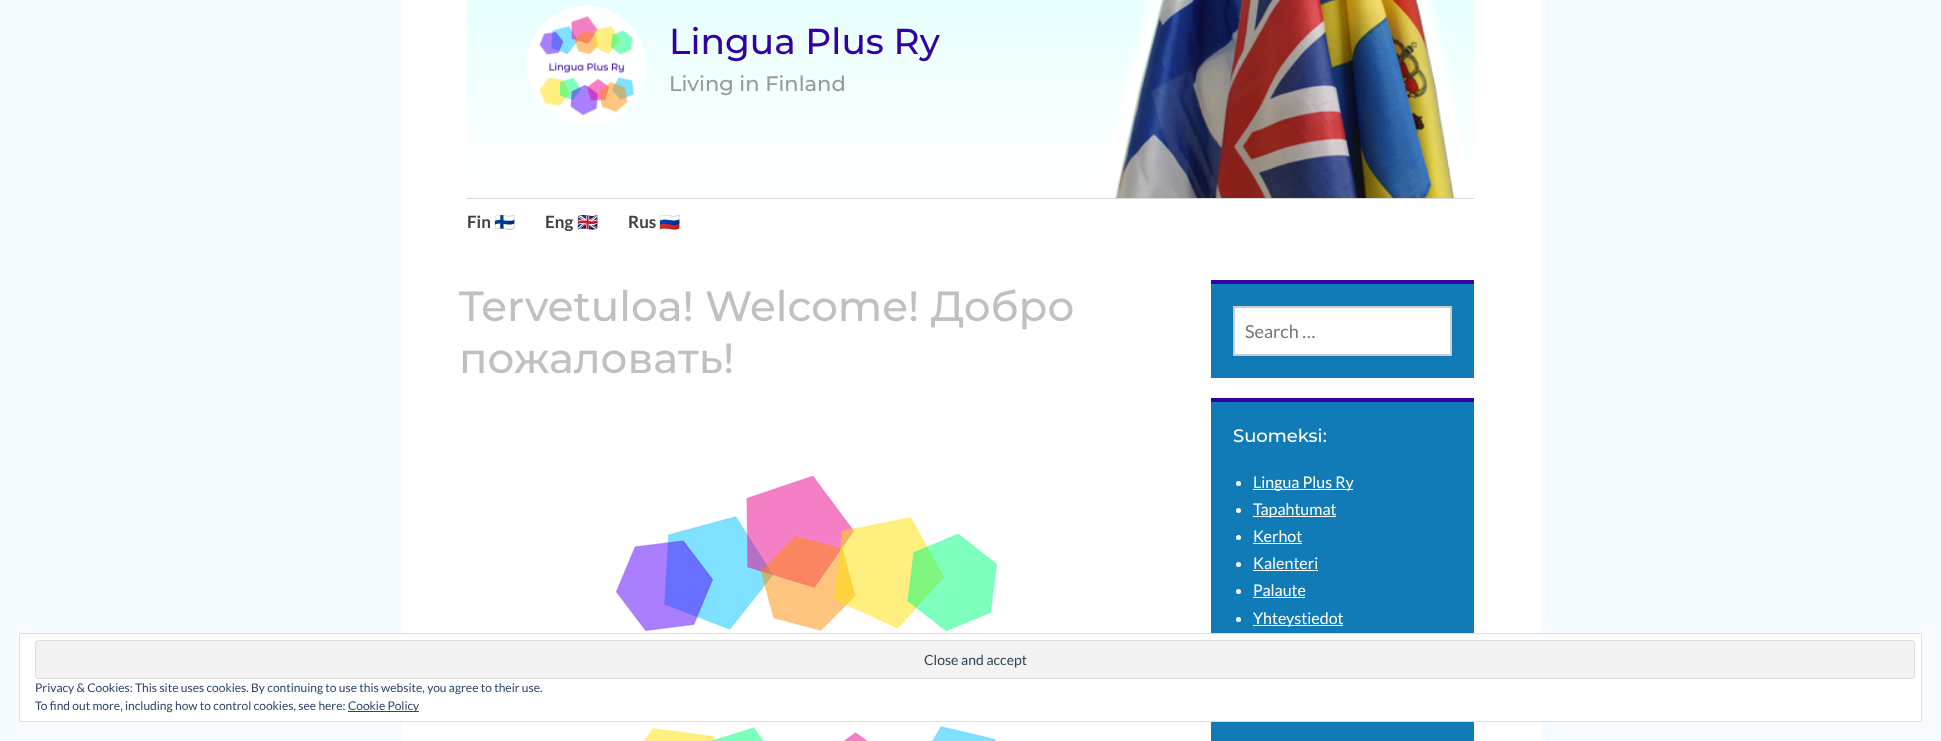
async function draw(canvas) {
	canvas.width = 1941;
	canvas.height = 741;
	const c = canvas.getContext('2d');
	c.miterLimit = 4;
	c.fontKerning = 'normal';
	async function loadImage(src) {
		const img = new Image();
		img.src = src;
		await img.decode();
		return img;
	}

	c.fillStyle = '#f5fbfe';
	c.fillRect(0, 0, 1941, 741);
	c.fillStyle = '#fff';
	c.fillRect(401, 0, 1140, 741);
	c.drawImage(await loadImage('img1.png'), 467, 0, 1007, 198);
	c.drawImage(await loadImage('img2.png'), 527, 5, 120, 120);
	c.font = '100 36px Montserrat';
	c.fillStyle = '#3500a3';
	c.fillText('Lingua Plus Ry', 669, 54);
	c.font = '100 21px Montserrat';
	c.fillStyle = '#999';
	c.fillText('Living in Finland', 669, 91);
	c.fillStyle = '#d9d9d9';
	c.fillRect(467, 198, 1007, 1);
	c.font = 'bold 17px Lato';
	c.fillStyle = '#404040';
	c.fillText('Fin', 467, 228);
	c.font = 'bold 17px Noto Color Emoji';
	c.fillText('🇫🇮', 494, 228);
	c.font = 'bold 17px Lato';
	c.fillText('Eng', 545, 228);
	c.font = 'bold 17px Noto Color Emoji';
	c.fillText('🇬🇧', 577, 228);
	c.font = 'bold 17px Lato';
	c.fillText('Rus', 628, 228);
	c.font = 'bold 17px Noto Color Emoji';
	c.fillText('🇷🇺', 659, 228);
	c.font = '100 42px Montserrat';
	c.fillStyle = '#c0c0c0';
	c.fillText('Tervetuloa! Welcome! Добро', 459, 321);
	c.fillText('пожаловать!', 459, 373);
	c.drawImage(await loadImage('img3.png'), 616, 476, 381, 265);
	c.fillStyle = '#117bb8';
	c.fillRect(1211, 284, 263, 94);
	c.fillStyle = '#3500a3';
	c.fillRect(1211, 280, 263, 4);
	c.fillStyle = '#fff';
	c.beginPath();
	c.rect(1234, 307, 217, 48);
	c.fill();
	c.strokeStyle = '#ccc';
	c.lineWidth = 2;
	c.stroke();
	c.font = '18px Lato';
	c.fillStyle = '#757575';
	c.fillText('Search …', 1245, 338);
	c.fillStyle = '#117bb8';
	c.fillRect(1211, 402, 263, 231);
	c.fillStyle = '#3500a3';
	c.fillRect(1211, 398, 263, 4);
	c.font = '100 18px Montserrat';
	c.fillStyle = '#fff';
	c.fillText('Suomeksi:', 1233, 442);
	c.beginPath();
	c.arc(1238.5, 483.5, 2.5, 0, 2 * Math.PI);
	c.fill();
	c.fillRect(1253, 489, 100, 1);
	c.font = '16px Lato';
	c.fillText('Lingua Plus Ry', 1253, 488);
	c.beginPath();
	c.arc(1238.5, 510.5, 2.5, 0, 2 * Math.PI);
	c.fill();
	c.fillRect(1253, 516, 83, 1);
	c.fillText('Tapahtumat', 1253, 515);
	c.beginPath();
	c.arc(1238.5, 537.5, 2.5, 0, 2 * Math.PI);
	c.fill();
	c.fillText('Kerhot', 1253, 542);
	c.fillRect(1253, 543, 49, 1);
	c.beginPath();
	c.arc(1238.5, 564.5, 2.5, 0, 2 * Math.PI);
	c.fill();
	c.fillText('Kalenteri', 1253, 569);
	c.fillRect(1253, 570, 65, 1);
	c.beginPath();
	c.arc(1238.5, 591.5, 2.5, 0, 2 * Math.PI);
	c.fill();
	c.fillText('Palaute', 1253, 596);
	c.fillRect(1253, 597, 52, 1);
	c.beginPath();
	c.arc(1238.5, 619.5, 2.5, 0, 2 * Math.PI);
	c.fill();
	c.fillRect(1253, 625, 90, 1);
	c.fillText('Yhteystiedot', 1253, 624);
	c.fillStyle = '#117bb8';
	c.fillRect(1211, 722, 263, 19);
	c.fillStyle = '#fff';
	c.beginPath();
	c.rect(19.5, 633.5, 1902, 88);
	c.fill();
	c.strokeStyle = '#dedede';
	c.lineWidth = 1;
	c.stroke();
	c.fillStyle = '#f3f3f3';
	c.beginPath();
	c.roundRect(35.5, 640.5, 1879, 38, 2.5);
	c.fill();
	c.stroke();
	c.font = '14px Lato';
	c.fillStyle = '#2e4453';
	c.fillText('Close and accept', 924, 665);
	c.font = '12px Lato';
	c.fillStyle = '#2e4467';
	c.fillText('Privacy & Cookies: This site uses cookies. By continuing to use this website, you agree to their use.', 35, 692);
	c.fillText('To find out more, including how to control cookies, see here:', 35, 710);
	c.fillRect(348, 711, 71, 1);
	c.fillText('Cookie Policy', 348, 710);
}

draw(document.querySelector('canvas'));
